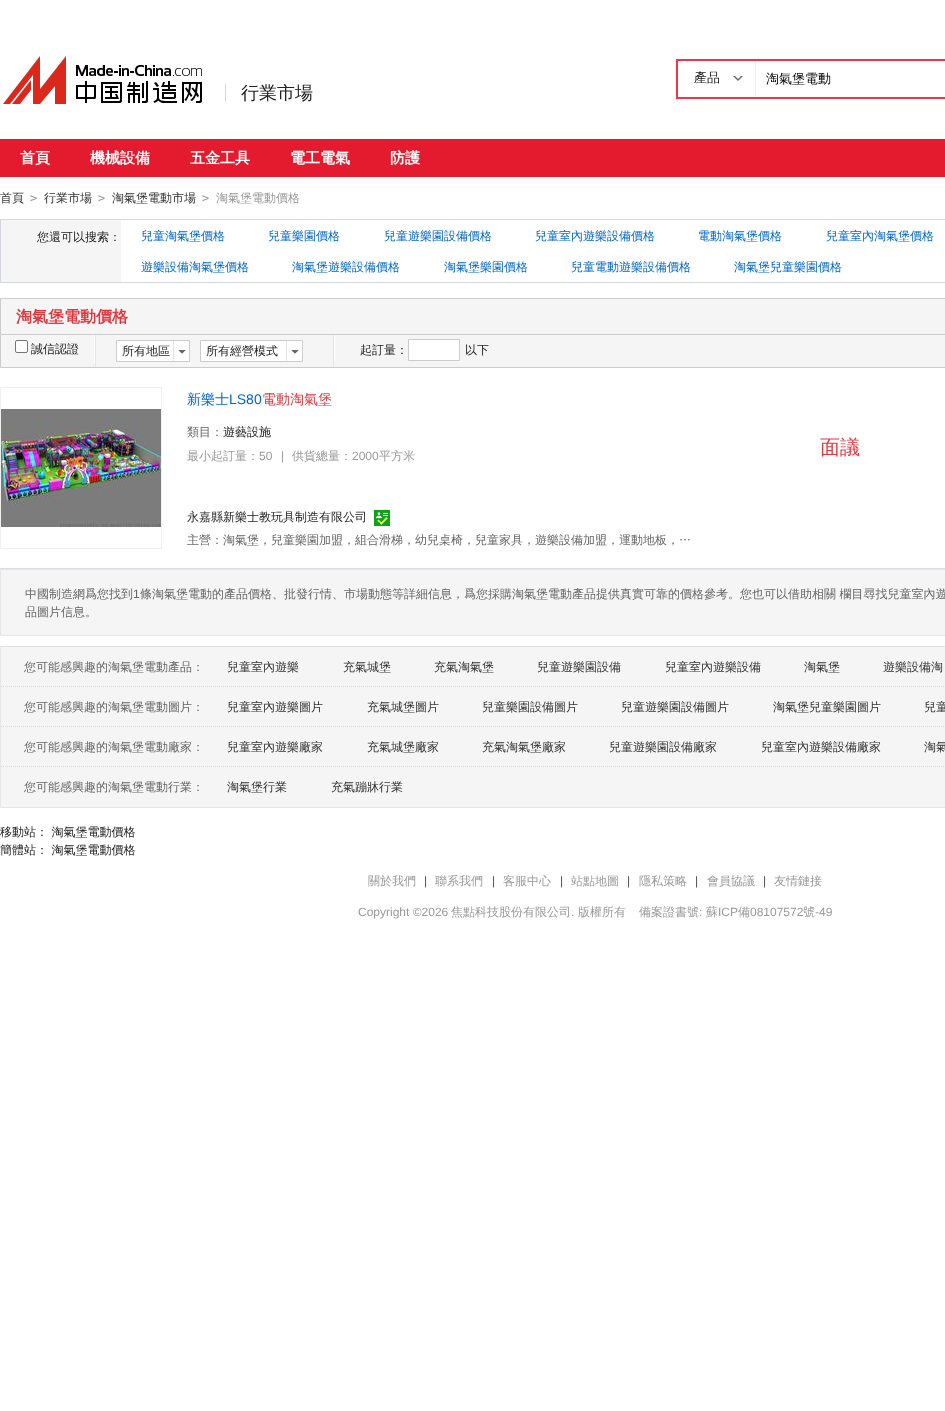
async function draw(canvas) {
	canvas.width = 945;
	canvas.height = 1411;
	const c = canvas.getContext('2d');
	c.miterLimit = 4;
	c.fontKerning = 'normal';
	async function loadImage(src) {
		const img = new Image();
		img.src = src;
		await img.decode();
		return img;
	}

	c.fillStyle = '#fff';
	c.fillRect(0, 0, 945, 1411);
	c.strokeStyle = '#f33348';
	c.lineWidth = 2;
	c.strokeRect(677, 60, 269, 38);
	c.fillStyle = '#eee';
	c.fillRect(755, 61, 1, 35);
	c.font = '500 13px WenQuanYi Zen Hei';
	c.fillStyle = '#222';
	c.fillText('產品', 694, 82);
	c.drawImage(await loadImage('img1.png'), 733, 76, 10, 5);
	c.fillStyle = '#000';
	c.fillText('淘氣堡電動', 766, 83);
	c.drawImage(await loadImage('img2.png'), 3, 56, 199, 48);
	c.fillStyle = '#d5d5d5';
	c.fillRect(225, 84, 1, 18);
	c.font = '500 18px WenQuanYi Zen Hei';
	c.fillStyle = '#222';
	c.fillText('行業市場', 241, 99);
	c.fillStyle = '#e41b2e';
	c.fillRect(0, 139, 945, 38);
	c.font = 'bold 15px WenQuanYi Zen Hei';
	c.fillStyle = '#fff';
	for (const [text, x, y] of [
		['首頁', 20, 163],
		['機械設備', 90, 163],
		['五金工具', 190, 163],
		['電工電氣', 290, 163],
		['防護', 390, 163],
	]) {
		c.fillText(text, x, y);
	}
	c.font = '500 12px WenQuanYi Zen Hei';
	c.fillStyle = '#333';
	c.fillText('首頁', 0, 202);
	c.font = '12px DejaVu Sans Mono';
	c.fillStyle = '#999';
	c.fillText('>', 30, 202);
	c.font = '500 12px WenQuanYi Zen Hei';
	c.fillStyle = '#333';
	c.fillText('行業市場', 44, 202);
	c.font = '12px DejaVu Sans Mono';
	c.fillStyle = '#999';
	c.fillText('>', 98, 202);
	c.font = '500 12px WenQuanYi Zen Hei';
	c.fillStyle = '#333';
	c.fillText('淘氣堡電動市場', 112, 202);
	c.font = '12px DejaVu Sans Mono';
	c.fillStyle = '#999';
	c.fillText('>', 202, 202);
	c.font = '500 12px WenQuanYi Zen Hei';
	c.fillText('淘氣堡電動價格', 216, 202);
	c.fillStyle = '#f5f5f5';
	c.fillRect(1, 220, 120, 62);
	c.strokeStyle = '#d5d7e0';
	c.lineWidth = 1;
	c.strokeRect(0.5, 219.5, 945, 63);
	c.fillStyle = '#222';
	c.fillText('您還可以搜索：', 37, 241);
	c.fillStyle = '#06c';
	for (const [text, x, y] of [
		['兒童淘氣堡價格', 141, 240],
		['兒童樂園價格', 268, 240],
		['兒童遊樂園設備價格', 384, 240],
		['兒童室內遊樂設備價格', 535, 240],
		['電動淘氣堡價格', 698, 240],
		['兒童室內淘氣堡價格', 826, 240],
		['遊樂設備淘氣堡價格', 141, 271],
		['淘氣堡遊樂設備價格', 292, 271],
		['淘氣堡樂園價格', 444, 271],
		['兒童電動遊樂設備價格', 571, 271],
		['淘氣堡兒童樂園價格', 734, 271],
	]) {
		c.fillText(text, x, y);
	}
	for (const [x, y, w, h, color] of [
		[1, 299, 944, 35, '#f5f5f5'],
		[0, 298, 945, 1, '#ccc'],
		[0, 298, 1, 36, '#ccc'],
	]) {
		c.fillStyle = color;
		c.fillRect(x, y, w, h);
	}
	c.font = 'bold 16px WenQuanYi Zen Hei';
	c.fillStyle = '#de373d';
	c.fillText('淘氣堡電動價格', 16, 322);
	c.fillStyle = '#f5f5f5';
	c.beginPath();
	c.rect(0.5, 334.5, 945, 33);
	c.fill();
	c.strokeStyle = '#ccc';
	c.stroke();
	c.fillStyle = '#fff';
	c.fillRect(94, 335, 1, 28);
	c.beginPath();
	c.roundRect(15.5, 340.5, 12, 12, 1.5);
	c.fill();
	c.strokeStyle = '#767676';
	c.stroke();
	c.font = '500 12px WenQuanYi Zen Hei';
	c.fillStyle = '#222';
	c.fillText('誠信認證', 31, 353);
	c.fillStyle = '#e6e6e6';
	c.fillRect(333, 335, 1, 32);
	c.fillRect(95, 335, 1, 32);
	c.fillStyle = '#fff';
	c.beginPath();
	c.rect(116.5, 340.5, 73, 21);
	c.fill();
	c.strokeStyle = '#ccc';
	c.stroke();
	c.fillStyle = '#222';
	c.fillText('所有地區', 122, 355);
	c.fillStyle = '#e6e6e6';
	c.fillRect(173, 341, 1, 20);
	c.fillStyle = '#666';
	c.beginPath();
	c.moveTo(178, 350);
	c.lineTo(186, 350);
	c.lineTo(182, 354);
	c.closePath();
	c.fill();
	c.fillStyle = '#fff';
	c.beginPath();
	c.moveTo(186, 350);
	c.lineTo(186, 358);
	c.lineTo(182, 354);
	c.closePath();
	c.moveTo(178, 358);
	c.lineTo(178, 350);
	c.lineTo(182, 354);
	c.closePath();
	c.fill();
	c.beginPath();
	c.rect(200.5, 340.5, 102, 21);
	c.fill();
	c.stroke();
	c.fillStyle = '#222';
	c.fillText('所有經營模式', 206, 355);
	c.fillStyle = '#e6e6e6';
	c.fillRect(286, 341, 1, 20);
	c.fillStyle = '#666';
	c.beginPath();
	c.moveTo(291, 350);
	c.lineTo(299, 350);
	c.lineTo(295, 354);
	c.closePath();
	c.fill();
	c.fillStyle = '#fff';
	c.beginPath();
	c.moveTo(299, 350);
	c.lineTo(299, 358);
	c.lineTo(295, 354);
	c.closePath();
	c.moveTo(291, 358);
	c.lineTo(291, 350);
	c.lineTo(295, 354);
	c.closePath();
	c.fill();
	c.fillRect(334, 335, 1, 26);
	c.fillStyle = '#222';
	c.fillText('起訂量：', 360, 354);
	c.fillStyle = '#fff';
	c.beginPath();
	c.rect(408.5, 339.5, 51, 21);
	c.fill();
	c.stroke();
	c.fillStyle = '#222';
	c.fillText('以下', 465, 354);
	c.fillStyle = '#dadce6';
	c.fillRect(0, 568, 945, 1);
	c.strokeStyle = '#f0f0f0';
	c.strokeRect(0.5, 387.5, 161, 161);
	c.drawImage(await loadImage('img3.png'), 1, 409, 160, 118);
	c.font = '500 14px WenQuanYi Zen Hei';
	c.fillStyle = '#06c';
	c.fillText('新樂士', 187, 404);
	c.font = '14px Liberation Sans';
	c.fillText('LS80', 229, 404);
	c.font = '500 14px WenQuanYi Zen Hei';
	c.fillStyle = '#de373d';
	c.fillText('電動淘氣堡', 262, 404);
	c.font = '500 12px WenQuanYi Zen Hei';
	c.fillStyle = '#666';
	c.fillText('類目：', 187, 436);
	c.fillStyle = '#222';
	c.fillText('遊藝設施', 223, 436);
	c.fillStyle = '#999';
	c.fillText('最小起訂量：', 187, 460);
	c.font = '12px Liberation Sans';
	c.fillText('50', 259, 460);
	c.fillText('|', 281, 460);
	c.font = '500 12px WenQuanYi Zen Hei';
	c.fillText('供貨總量：', 292, 460);
	c.font = '12px Liberation Sans';
	c.fillText('2000', 352, 460);
	c.font = '500 12px WenQuanYi Zen Hei';
	c.fillText('平方米', 379, 460);
	c.fillStyle = '#222';
	c.fillText('永嘉縣新樂士教玩具制造有限公司', 187, 521);
	c.drawImage(await loadImage('img4.png'), 374, 510, 16, 16);
	c.fillStyle = '#666';
	c.fillText('主營：', 187, 544);
	c.fillText('淘氣堡，兒童樂園加盟，組合滑梯，幼兒桌椅，兒童家具，遊樂設備加盟，運動地板，…', 223, 544);
	c.font = '500 20px WenQuanYi Zen Hei';
	c.fillStyle = '#de373d';
	c.fillText('面議', 820, 454);
	c.fillStyle = '#f5f5f5';
	c.beginPath();
	c.rect(0.5, 569.5, 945, 66);
	c.fill();
	c.strokeStyle = '#e6e6e6';
	c.stroke();
	c.font = '500 12px WenQuanYi Zen Hei';
	c.fillStyle = '#666';
	c.fillText('中國制造網爲您找到', 25, 598);
	c.font = '12px Liberation Sans';
	c.fillText('1', 133, 598);
	c.font = '500 12px WenQuanYi Zen Hei';
	c.fillText('條淘氣堡電動的產品價格、批發行情、市場動態等詳細信息，爲您採購淘氣堡電動產品提供真實可靠的價格參考。您也可以借助相關 欄目尋找兒童室內遊', 140, 598);
	c.fillText('品圖片信息。', 25, 616);
	c.fillStyle = '#f5f5f5';
	c.beginPath();
	c.rect(0.5, 646.5, 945, 161);
	c.fill();
	c.stroke();
	c.beginPath();
	c.moveTo(1, 646.5);
	c.lineTo(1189, 646.5);
	c.strokeStyle = '#d9d9d9';
	c.setLineDash([1, 1]);
	c.stroke();
	c.fillStyle = '#666';
	c.fillText('您可能感興趣的淘氣堡電動產品：', 24, 671);
	c.fillStyle = '#333';
	for (const [text, x, y] of [
		['兒童室內遊樂', 227, 671],
		['充氣城堡', 343, 671],
		['充氣淘氣堡', 434, 671],
		['兒童遊樂園設備', 537, 671],
		['兒童室內遊樂設備', 665, 671],
		['淘氣堡', 804, 671],
		['遊樂設備淘', 883, 671],
	]) {
		c.fillText(text, x, y);
	}
	c.beginPath();
	c.moveTo(1, 686.5);
	c.lineTo(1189, 686.5);
	c.stroke();
	c.fillStyle = '#666';
	c.fillText('您可能感興趣的淘氣堡電動圖片：', 24, 711);
	c.fillStyle = '#333';
	for (const [text, x, y] of [
		['兒童室內遊樂圖片', 227, 711],
		['充氣城堡圖片', 367, 711],
		['兒童樂園設備圖片', 482, 711],
		['兒童遊樂園設備圖片', 621, 711],
		['淘氣堡兒童樂園圖片', 773, 711],
		['兒童', 924, 711],
	]) {
		c.fillText(text, x, y);
	}
	c.beginPath();
	c.moveTo(1, 726.5);
	c.lineTo(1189, 726.5);
	c.stroke();
	c.fillStyle = '#666';
	c.fillText('您可能感興趣的淘氣堡電動廠家：', 24, 751);
	c.fillStyle = '#333';
	for (const [text, x, y] of [
		['兒童室內遊樂廠家', 227, 751],
		['充氣城堡廠家', 367, 751],
		['充氣淘氣堡廠家', 482, 751],
		['兒童遊樂園設備廠家', 609, 751],
		['兒童室內遊樂設備廠家', 761, 751],
		['淘氣', 924, 751],
	]) {
		c.fillText(text, x, y);
	}
	c.beginPath();
	c.moveTo(1, 766.5);
	c.lineTo(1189, 766.5);
	c.stroke();
	c.fillStyle = '#666';
	c.fillText('您可能感興趣的淘氣堡電動行業：', 24, 791);
	c.fillStyle = '#333';
	c.fillText('淘氣堡行業', 227, 791);
	c.fillText('充氣蹦牀行業', 331, 791);
	c.fillStyle = '#222';
	c.fillText('移動站： 淘氣堡電動價格', 0, 836);
	c.fillText('簡體站： 淘氣堡電動價格', 0, 854);
	c.fillStyle = '#999';
	c.fillText('關於我們', 368, 885);
	c.font = '12px Liberation Sans';
	c.fillStyle = '#4d4d4d';
	c.fillText('|', 424, 885);
	c.font = '500 12px WenQuanYi Zen Hei';
	c.fillStyle = '#999';
	c.fillText('聯系我們', 435, 885);
	c.font = '12px Liberation Sans';
	c.fillStyle = '#4d4d4d';
	c.fillText('|', 492, 885);
	c.font = '500 12px WenQuanYi Zen Hei';
	c.fillStyle = '#999';
	c.fillText('客服中心', 503, 885);
	c.font = '12px Liberation Sans';
	c.fillStyle = '#4d4d4d';
	c.fillText('|', 560, 885);
	c.font = '500 12px WenQuanYi Zen Hei';
	c.fillStyle = '#999';
	c.fillText('站點地圖', 571, 885);
	c.font = '12px Liberation Sans';
	c.fillStyle = '#4d4d4d';
	c.fillText('|', 627, 885);
	c.font = '500 12px WenQuanYi Zen Hei';
	c.fillStyle = '#999';
	c.fillText('隱私策略', 639, 885);
	c.font = '12px Liberation Sans';
	c.fillStyle = '#4d4d4d';
	c.fillText('|', 695, 885);
	c.font = '500 12px WenQuanYi Zen Hei';
	c.fillStyle = '#999';
	c.fillText('會員協議', 707, 885);
	c.font = '12px Liberation Sans';
	c.fillStyle = '#4d4d4d';
	c.fillText('|', 763, 885);
	c.font = '500 12px WenQuanYi Zen Hei';
	c.fillStyle = '#999';
	c.fillText('友情鏈接', 774, 885);
	c.font = '12px Liberation Sans';
	c.fillText('Copyright ©2026', 358, 916);
	c.font = '500 12px WenQuanYi Zen Hei';
	c.fillText('焦點科技股份有限公司', 451, 916);
	c.font = '12px Liberation Sans';
	c.fillText('.', 571, 916);
	c.font = '500 12px WenQuanYi Zen Hei';
	c.fillText('版權所有', 578, 916);
	c.fillText('備案證書號', 639, 916);
	c.font = '12px Liberation Sans';
	c.fillText(':', 699, 916);
	c.font = '500 12px WenQuanYi Zen Hei';
	c.fillText('蘇', 706, 916);
	c.font = '12px Liberation Sans';
	c.fillText('ICP', 718, 916);
	c.font = '500 12px WenQuanYi Zen Hei';
	c.fillText('備', 738, 916);
	c.font = '12px Liberation Sans';
	c.fillText('08107572', 750, 916);
	c.font = '500 12px WenQuanYi Zen Hei';
	c.fillText('號', 803, 916);
	c.font = '12px Liberation Sans';
	c.fillText('-49', 815, 916);
}

draw(document.querySelector('canvas'));
